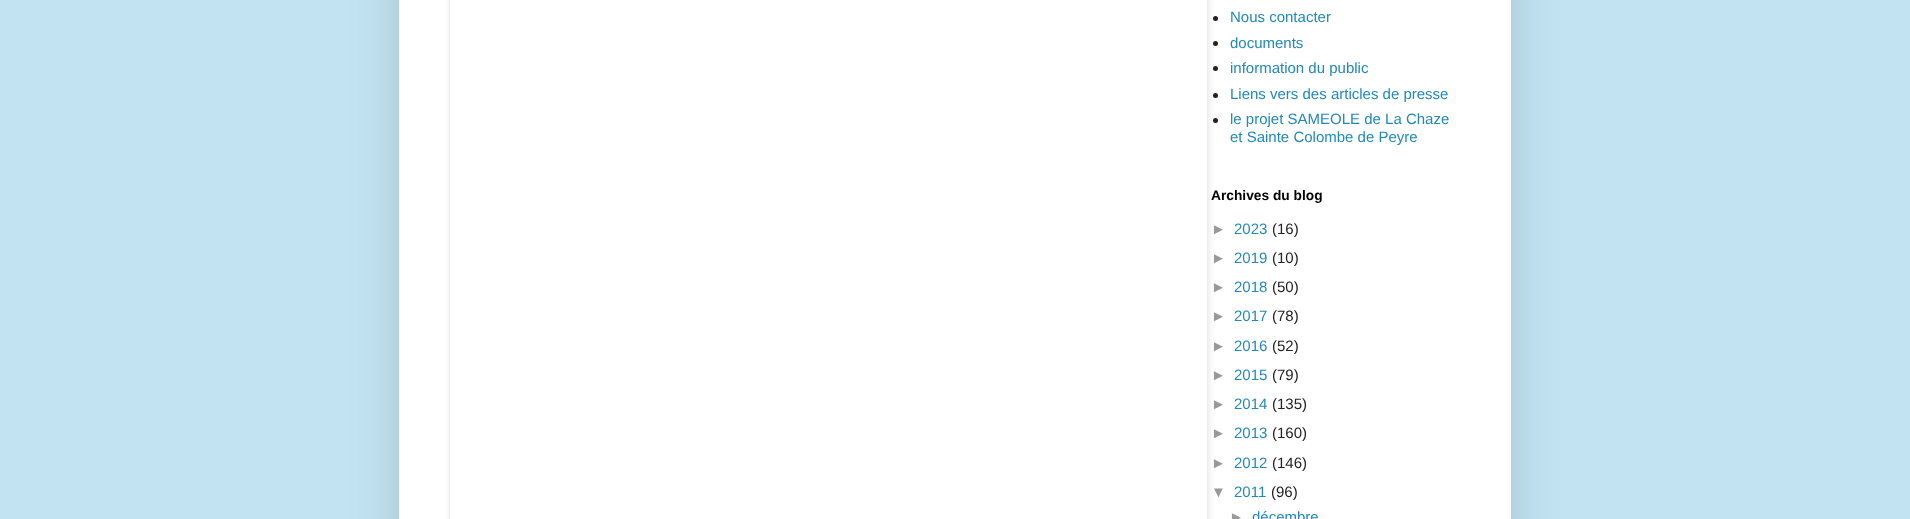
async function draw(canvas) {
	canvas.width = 1910;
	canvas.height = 519;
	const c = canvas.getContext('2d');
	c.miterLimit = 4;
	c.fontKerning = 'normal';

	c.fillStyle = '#c2e4f2';
	c.fillRect(0, 0, 1910, 519);
	c.fillStyle = '#00000026';
	c.filter = 'blur(25px)';
	c.beginPath();
	c.rect(399, -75, 1112, 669);
	c.fill();
	c.filter = 'none';
	c.fillStyle = '#fff';
	c.fillRect(399, 0, 1112, 519);
	c.fillStyle = '#0000001a';
	c.filter = 'blur(3px)';
	c.beginPath();
	c.rect(450, -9, 759, 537);
	c.fill();
	c.filter = 'none';
	c.fillStyle = '#fff';
	c.beginPath();
	c.rect(449.5, -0.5, 758, 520);
	c.fill();
	c.strokeStyle = '#eee';
	c.stroke();
	c.fillStyle = '#222';
	c.beginPath();
	c.arc(1215.5, 18.5, 2.5, 0, 2 * Math.PI);
	c.fill();
	c.font = '15px Liberation Sans';
	c.fillStyle = '#28b';
	c.fillText('Nous contacter', 1230, 22);
	c.fillStyle = '#222';
	c.beginPath();
	c.arc(1215.5, 43.5, 2.5, 0, 2 * Math.PI);
	c.fill();
	c.fillStyle = '#28b';
	c.fillText('documents', 1230, 48);
	c.fillStyle = '#222';
	c.beginPath();
	c.arc(1215.5, 68.5, 2.5, 0, 2 * Math.PI);
	c.fill();
	c.fillStyle = '#28b';
	c.fillText('information du public', 1230, 73);
	c.fillStyle = '#222';
	c.beginPath();
	c.arc(1215.5, 95.5, 2.5, 0, 2 * Math.PI);
	c.fill();
	c.fillStyle = '#28b';
	c.fillText('Liens vers des articles de presse', 1230, 99);
	c.fillStyle = '#222';
	c.beginPath();
	c.arc(1215.5, 120.5, 2.5, 0, 2 * Math.PI);
	c.fill();
	c.fillStyle = '#28b';
	c.fillText('le projet SAMEOLE de La Chaze', 1230, 124);
	c.fillText('et Sainte Colombe de Peyre', 1230, 142);
	c.font = 'bold 13.75px Liberation Sans';
	c.fillStyle = '#000';
	c.fillText('Archives du blog', 1211, 200);
	c.font = '15px Liberation Sans';
	c.fillStyle = '#999';
	c.fillText('►', 1211, 234);
	c.fillStyle = '#28b';
	c.fillText('2023', 1234, 234);
	c.fillStyle = '#222';
	c.fillText('(16)', 1272, 234);
	c.fillStyle = '#999';
	c.fillText('►', 1211, 263);
	c.fillStyle = '#28b';
	c.fillText('2019', 1234, 263);
	c.fillStyle = '#222';
	c.fillText('(10)', 1272, 263);
	c.fillStyle = '#999';
	c.fillText('►', 1211, 292);
	c.fillStyle = '#28b';
	c.fillText('2018', 1234, 292);
	c.fillStyle = '#222';
	c.fillText('(50)', 1272, 292);
	c.fillStyle = '#999';
	c.fillText('►', 1211, 321);
	c.fillStyle = '#28b';
	c.fillText('2017', 1234, 321);
	c.fillStyle = '#222';
	c.fillText('(78)', 1272, 321);
	c.fillStyle = '#999';
	c.fillText('►', 1211, 351);
	c.fillStyle = '#28b';
	c.fillText('2016', 1234, 351);
	c.fillStyle = '#222';
	c.fillText('(52)', 1272, 351);
	c.fillStyle = '#999';
	c.fillText('►', 1211, 380);
	c.fillStyle = '#28b';
	c.fillText('2015', 1234, 380);
	c.fillStyle = '#222';
	c.fillText('(79)', 1272, 380);
	c.fillStyle = '#999';
	c.fillText('►', 1211, 409);
	c.fillStyle = '#28b';
	c.fillText('2014', 1234, 409);
	c.fillStyle = '#222';
	c.fillText('(135)', 1272, 409);
	c.fillStyle = '#999';
	c.fillText('►', 1211, 438);
	c.fillStyle = '#28b';
	c.fillText('2013', 1234, 438);
	c.fillStyle = '#222';
	c.fillText('(160)', 1272, 438);
	c.fillStyle = '#999';
	c.fillText('►', 1211, 468);
	c.fillStyle = '#28b';
	c.fillText('2012', 1234, 468);
	c.fillStyle = '#222';
	c.fillText('(146)', 1272, 468);
	c.fillStyle = '#999';
	c.fillText('▼', 1211, 497);
	c.fillStyle = '#28b';
	c.fillText('2011', 1234, 497);
	c.fillStyle = '#222';
	c.fillText('(96)', 1271, 497);
	c.fillStyle = '#999';
	c.fillText('►', 1229, 522);
	c.fillStyle = '#28b';
	c.fillText('décembre', 1252, 522);
}

draw(document.querySelector('canvas'));
